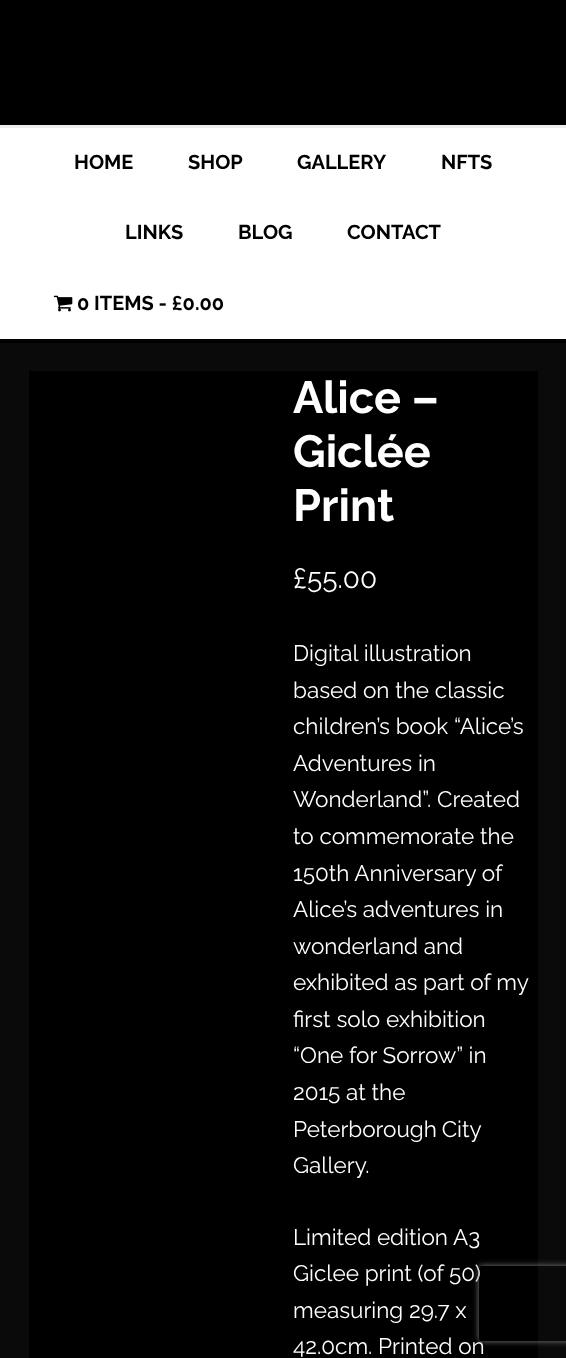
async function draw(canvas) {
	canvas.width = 566;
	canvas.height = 1358;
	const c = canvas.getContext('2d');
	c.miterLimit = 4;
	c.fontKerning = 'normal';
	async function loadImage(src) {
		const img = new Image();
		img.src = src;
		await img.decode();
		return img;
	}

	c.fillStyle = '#0a0a0a';
	c.fillRect(0, 0, 566, 1358);
	for (const [x, y, w, h, color] of [
		[0, 0, 566, 125, '#000'],
		[0, 125, 566, 3, '#eee'],
		[0, 128, 566, 211, '#fff'],
		[0, 339, 566, 4, '#000'],
	]) {
		c.fillStyle = color;
		c.fillRect(x, y, w, h);
	}
	c.font = 'bold 20px Raleway';
	for (const [text, x, y] of [
		['HOME', 74, 169],
		['SHOP', 188, 169],
		['GALLERY', 297, 169],
		['NFTS', 441, 169],
		['LINKS', 125, 239],
		['BLOG', 238, 239],
		['CONTACT', 347, 239],
	]) {
		c.fillText(text, x, y);
	}
	c.drawImage(await loadImage('img1.png'), 53, 295, 20, 17);
	c.fillText('0 ITEMS - £0.00', 77, 310);
	c.fillRect(29, 371, 509, 987);
	c.font = 'bold 45px Raleway';
	c.fillStyle = '#fff';
	for (const [text, x, y] of [
		['Alice –', 293, 413],
		['Giclée', 293, 467],
		['Print', 293, 521],
	]) {
		c.fillText(text, x, y);
	}
	c.font = '28px Raleway';
	c.fillText('£55.00', 293, 588);
	c.font = '22.5px Raleway';
	for (const [text, x, y] of [
		['Digital illustration', 293, 661],
		['based on the classic', 293, 698],
		['children’s book “Alice’s', 293, 734],
		['Adventures in', 293, 771],
		['Wonderland”. Created', 293, 807],
		['to commemorate the', 293, 844],
		['150th Anniversary of', 293, 881],
		['Alice’s adventures in', 293, 917],
		['wonderland and', 293, 954],
		['exhibited as part of my', 293, 990],
		['first solo exhibition', 293, 1027],
		['“One for Sorrow” in', 293, 1063],
		['2015 at the', 293, 1100],
	]) {
		c.fillText(text, x, y);
	}
	c.wordSpacing = '-1px';
	c.fillText('Peterborough City', 293, 1137);
	c.wordSpacing = '0px';
	for (const [text, x, y] of [
		['Gallery.', 293, 1173],
		['Limited edition A3', 293, 1245],
		['Giclee print (of 50)', 293, 1281],
		['measuring 29.7 x', 293, 1318],
		['42.0cm. Printed on', 293, 1354],
	]) {
		c.fillText(text, x, y);
	}
	c.save();
	c.beginPath();
	c.moveTo(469, 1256);
	c.lineTo(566, 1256);
	c.lineTo(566, 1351);
	c.lineTo(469, 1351);
	c.closePath();
	c.moveTo(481.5, 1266);
	c.lineTo(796.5, 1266);
	c.bezierCurveTo(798, 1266, 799, 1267, 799, 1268.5);
	c.lineTo(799, 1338.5);
	c.bezierCurveTo(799, 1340, 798, 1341, 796.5, 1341);
	c.lineTo(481.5, 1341);
	c.bezierCurveTo(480, 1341, 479, 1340, 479, 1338.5);
	c.lineTo(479, 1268.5);
	c.bezierCurveTo(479, 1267, 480, 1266, 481.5, 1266);
	c.closePath();
	c.clip('evenodd');
	c.fillStyle = '#808080';
	c.filter = 'blur(3px)';
	c.beginPath();
	c.roundRect(479, 1266, 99, 75, 2.5);
	c.fill();
	c.filter = 'none';
	c.restore();
}

draw(document.querySelector('canvas'));
